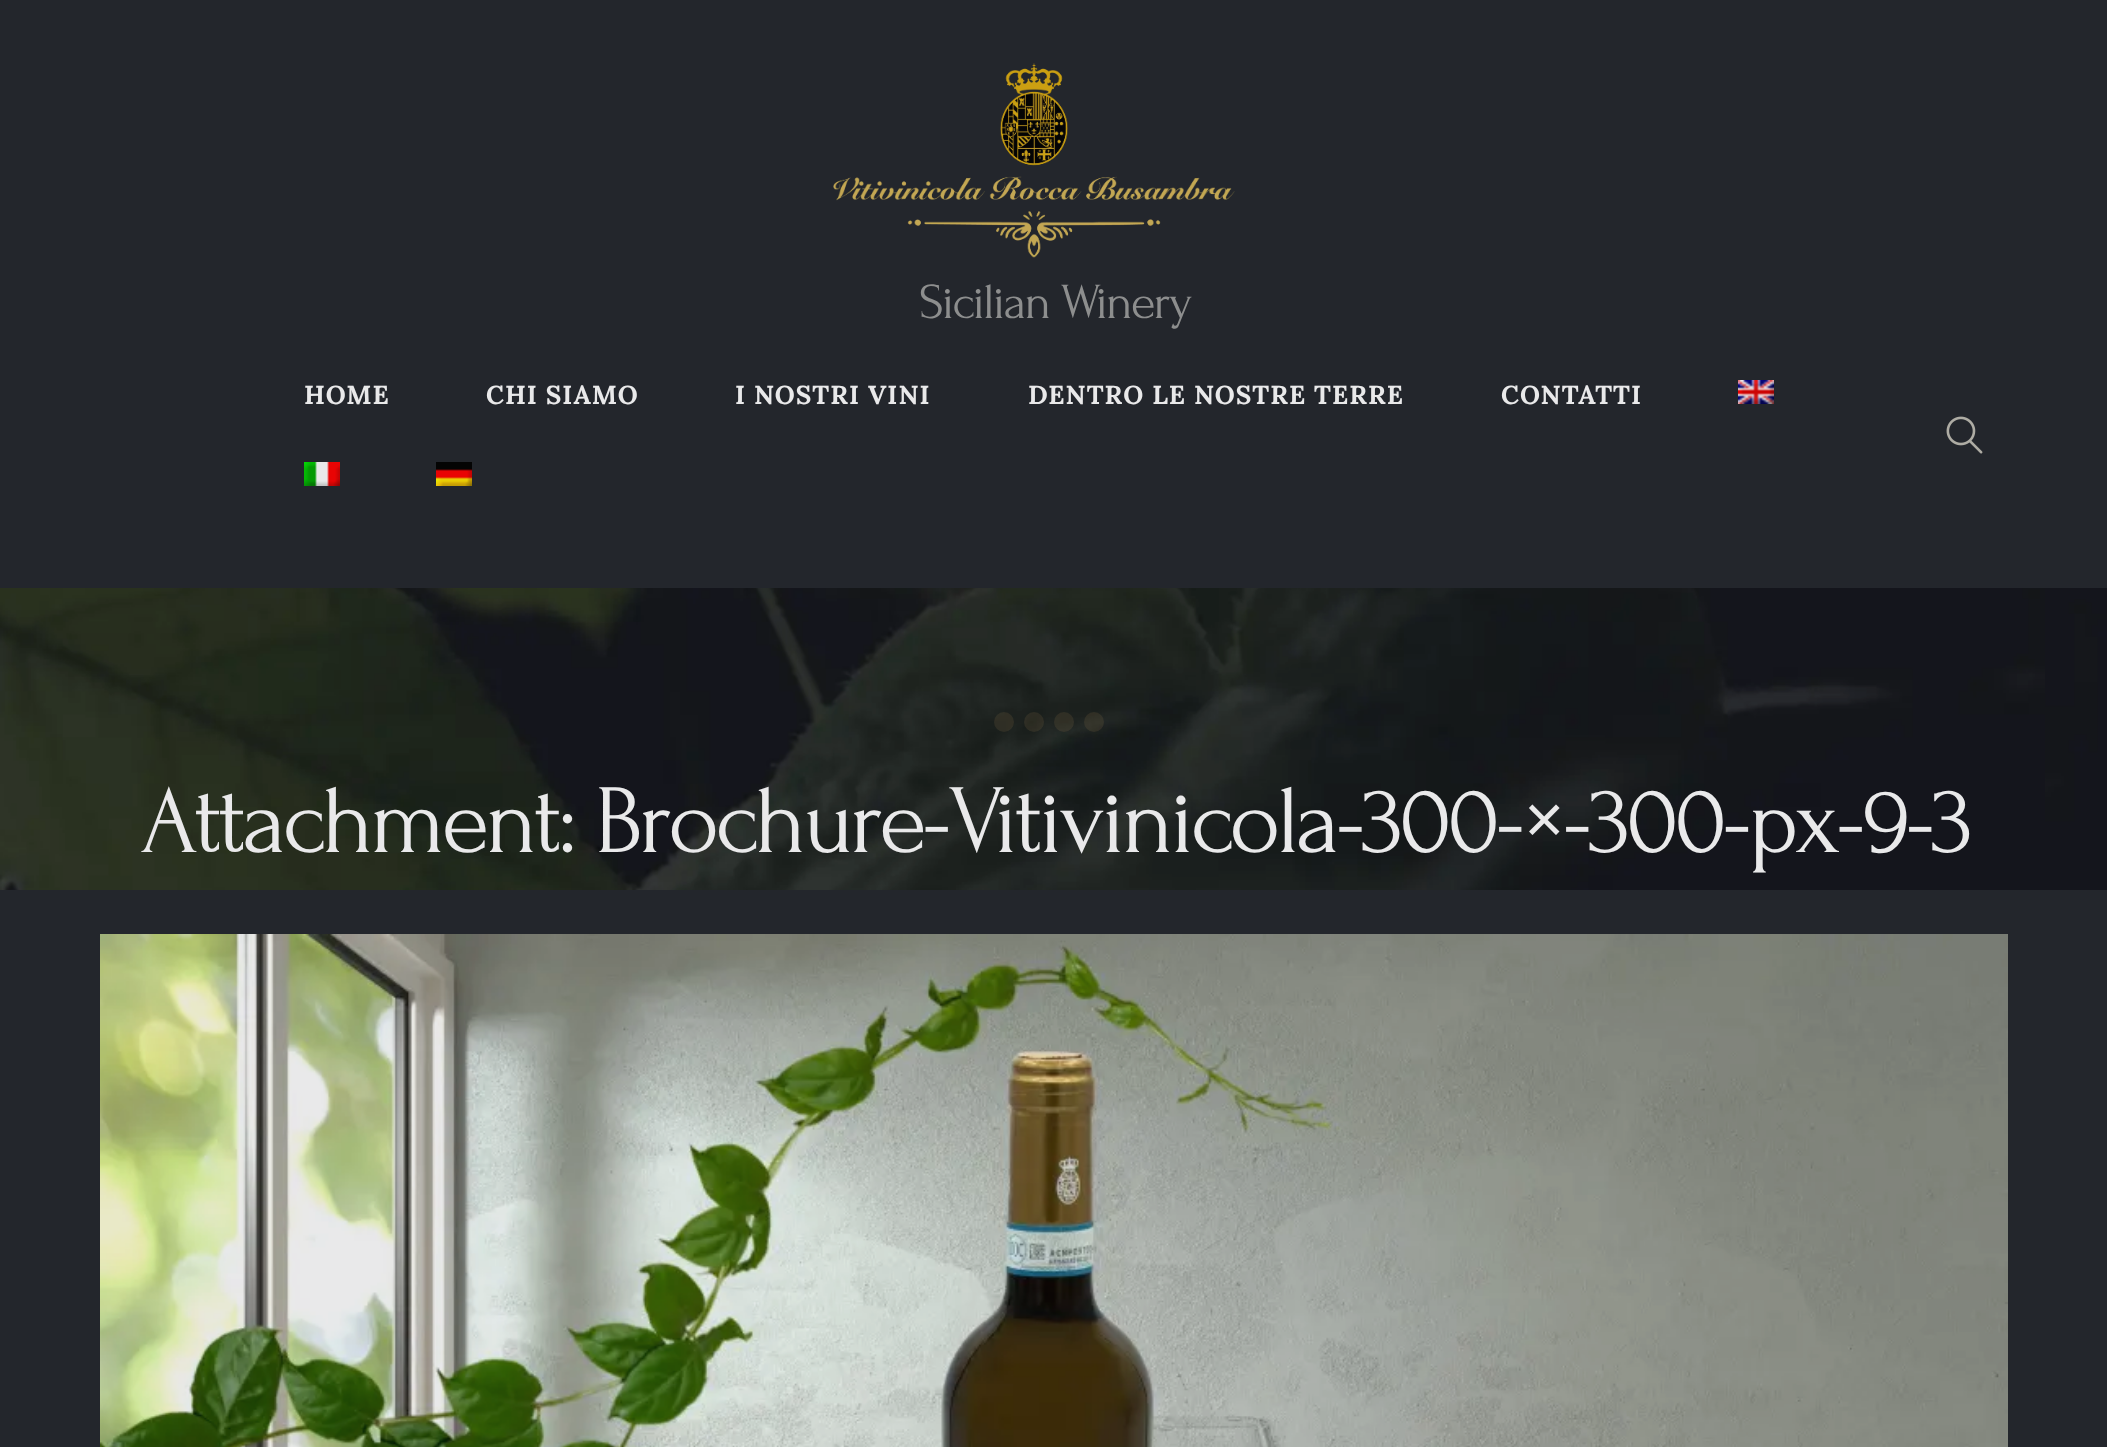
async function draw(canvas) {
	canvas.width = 2107;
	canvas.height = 1447;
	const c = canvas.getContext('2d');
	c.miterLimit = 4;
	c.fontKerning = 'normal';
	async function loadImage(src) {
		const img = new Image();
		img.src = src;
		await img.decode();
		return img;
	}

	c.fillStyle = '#23262c';
	c.fillRect(0, 0, 2107, 1447);
	c.drawImage(await loadImage('img1.png'), 833, 63, 402, 195);
	c.letterSpacing = '-2px';
	c.font = '50.5px Forum';
	c.fillStyle = '#8d8e8e';
	c.fillText('Sicilian Winery', 919, 318);
	c.letterSpacing = '1px';
	c.font = 'bold 26px Lora';
	c.fillStyle = '#e9e9ea';
	for (const [text, x, y] of [
		['HOME', 304, 404],
		['CHI SIAMO', 486, 404],
		['I NOSTRI VINI', 735, 404],
		['DENTRO LE NOSTRE TERRE', 1028, 404],
		['CONTATTI', 1501, 404],
	]) {
		c.fillText(text, x, y);
	}
	c.drawImage(await loadImage('img2.png'), 1738, 380, 36, 24);
	c.drawImage(await loadImage('img3.png'), 304, 462, 36, 24);
	c.drawImage(await loadImage('img4.png'), 436, 462, 36, 24);
	c.drawImage(await loadImage('img5.png'), 1946, 416, 37, 38);
	c.drawImage(await loadImage('img6.png'), 2045, 588, 62, 302);
	c.drawImage(await loadImage('img7.png'), 0, 588, 2045, 302);
	c.letterSpacing = '-3.9px';
	c.font = '98px Forum';
	c.fillText('Attachment: Brochure-Vitivinicola-300-×-300-px-9-3', 140, 852);
	c.drawImage(await loadImage('img8.png'), 100, 934, 1908, 513);
	c.fillStyle = '#ddb16e1a';
	c.beginPath();
	c.arc(1004, 722, 10, 0, 2 * Math.PI);
	c.fill();
	c.beginPath();
	c.arc(1034, 722, 10, 0, 2 * Math.PI);
	c.fill();
	c.beginPath();
	c.arc(1064, 722, 10, 0, 2 * Math.PI);
	c.fill();
	c.beginPath();
	c.arc(1094, 722, 10, 0, 2 * Math.PI);
	c.fill();
}

draw(document.querySelector('canvas'));
